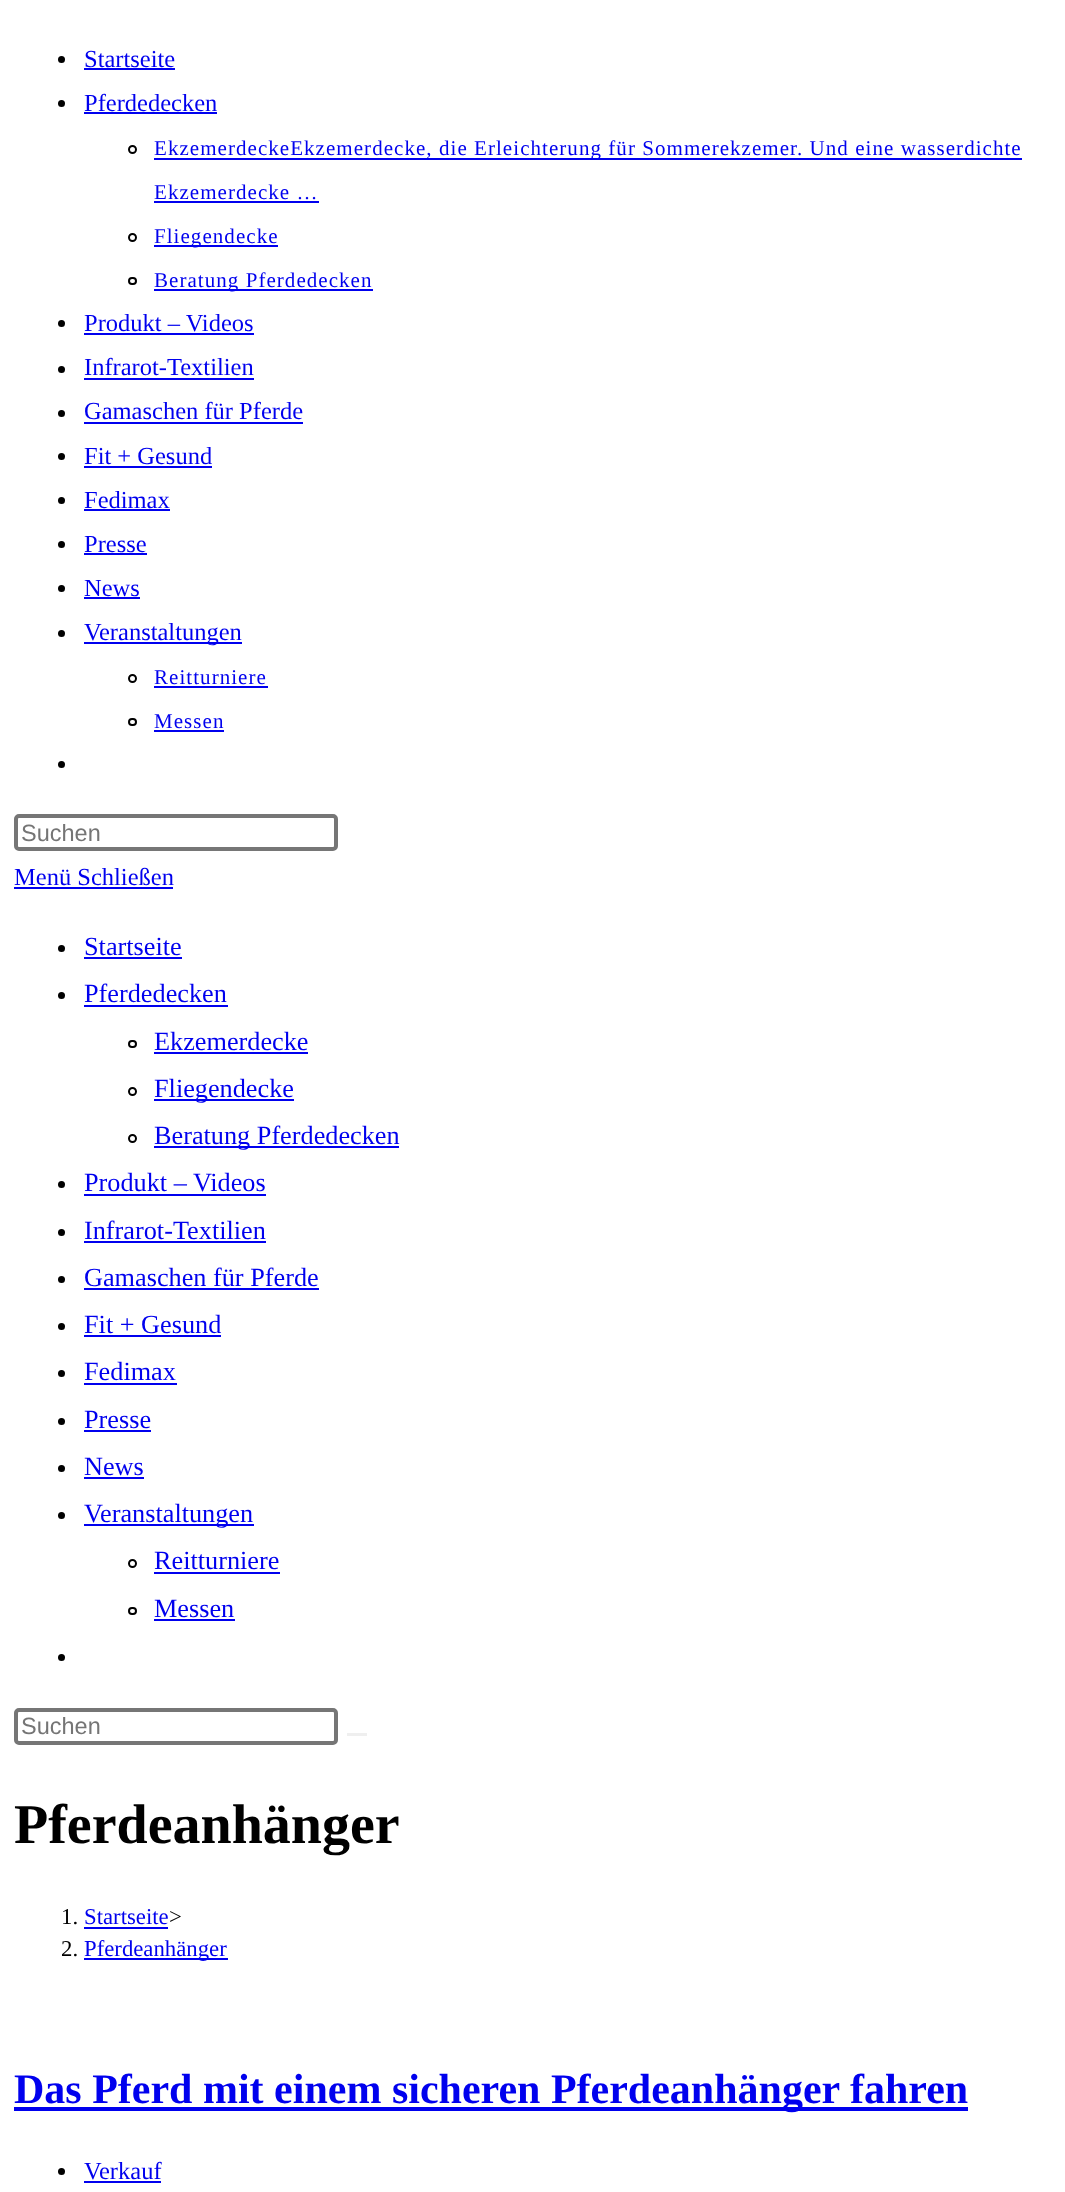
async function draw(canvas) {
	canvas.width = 1065;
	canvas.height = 2192;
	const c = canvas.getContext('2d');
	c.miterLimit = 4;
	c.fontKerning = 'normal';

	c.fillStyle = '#fff';
	c.fillRect(0, 0, 1065, 2192);
	c.fillStyle = '#000';
	c.beginPath();
	c.arc(61.5, 59.5, 3.5, 0, 2 * Math.PI);
	c.fill();
	c.font = '24.5px Liberation Serif';
	c.fillStyle = '#00e';
	c.fillText('Startseite', 84, 67);
	c.fillRect(84, 68, 91, 2);
	c.fillStyle = '#000';
	c.beginPath();
	c.arc(61.5, 103.5, 3.5, 0, 2 * Math.PI);
	c.fill();
	c.fillStyle = '#00e';
	c.fillText('Pferdedecken', 84, 111);
	c.fillRect(84, 112, 133, 2);
	c.beginPath();
	c.arc(132.5, 149.5, 3.5, 0, 2 * Math.PI);
	c.strokeStyle = '#000';
	c.lineWidth = 2;
	c.stroke();
	c.fillRect(154, 158, 868, 2);
	c.letterSpacing = '1.05px';
	c.font = '21px Liberation Serif';
	c.fillText('EkzemerdeckeEkzemerdecke, die Erleichterung für Sommerekzemer. Und eine wasserdichte', 154, 155);
	c.fillText('Ekzemerdecke …', 154, 199);
	c.fillRect(154, 201, 165, 2);
	c.beginPath();
	c.arc(132.5, 237.5, 3.5, 0, 2 * Math.PI);
	c.stroke();
	c.fillRect(154, 245, 124, 2);
	c.fillText('Fliegendecke', 154, 243);
	c.beginPath();
	c.roundRect(129, 278, 7, 6, 3);
	c.stroke();
	c.fillRect(154, 289, 219, 2);
	c.fillText('Beratung Pferdedecken', 154, 287);
	c.fillStyle = '#000';
	c.beginPath();
	c.arc(61.5, 323.5, 3.5, 0, 2 * Math.PI);
	c.fill();
	c.letterSpacing = '0px';
	c.font = '24.5px Liberation Serif';
	c.fillStyle = '#00e';
	c.fillText('Produkt – Videos', 84, 331);
	c.fillRect(84, 333, 170, 2);
	c.fillStyle = '#000';
	c.beginPath();
	c.arc(61.5, 369.5, 3.5, 0, 2 * Math.PI);
	c.fill();
	c.fillStyle = '#00e';
	c.fillText('Infrarot-Textilien', 84, 375);
	c.fillRect(84, 378, 170, 2);
	c.fillStyle = '#000';
	c.beginPath();
	c.arc(61.5, 413.5, 3.5, 0, 2 * Math.PI);
	c.fill();
	c.fillStyle = '#00e';
	c.fillText('Gamaschen für Pferde', 84, 419);
	c.fillRect(84, 422, 219, 2);
	c.fillStyle = '#000';
	c.beginPath();
	c.arc(61.5, 456.5, 3.5, 0, 2 * Math.PI);
	c.fill();
	c.fillStyle = '#00e';
	c.fillText('Fit + Gesund', 84, 464);
	c.fillRect(84, 466, 128, 2);
	c.fillStyle = '#000';
	c.beginPath();
	c.arc(61.5, 500.5, 3.5, 0, 2 * Math.PI);
	c.fill();
	c.fillStyle = '#00e';
	c.fillText('Fedimax', 84, 508);
	c.fillRect(84, 509, 86, 2);
	c.fillStyle = '#000';
	c.beginPath();
	c.arc(61.5, 544.5, 3.5, 0, 2 * Math.PI);
	c.fill();
	c.fillStyle = '#00e';
	c.fillText('Presse', 84, 552);
	c.fillRect(84, 553, 63, 2);
	c.fillStyle = '#000';
	c.beginPath();
	c.arc(61.5, 588.5, 3.5, 0, 2 * Math.PI);
	c.fill();
	c.fillStyle = '#00e';
	c.fillText('News', 84, 596);
	c.fillRect(84, 597, 56, 2);
	c.fillStyle = '#000';
	c.beginPath();
	c.arc(61.5, 633.5, 3.5, 0, 2 * Math.PI);
	c.fill();
	c.fillStyle = '#00e';
	c.fillRect(84, 642, 158, 2);
	c.fillText('Veranstaltungen', 84, 640);
	c.beginPath();
	c.arc(132.5, 678.5, 3.5, 0, 2 * Math.PI);
	c.stroke();
	c.letterSpacing = '1.05px';
	c.font = '21px Liberation Serif';
	c.fillText('Reitturniere', 154, 684);
	c.fillRect(154, 686, 114, 2);
	c.beginPath();
	c.roundRect(129, 719, 7, 6, 3);
	c.stroke();
	c.fillText('Messen', 154, 728);
	c.fillRect(154, 730, 70, 2);
	c.fillStyle = '#000';
	c.beginPath();
	c.arc(61.5, 764.5, 3.5, 0, 2 * Math.PI);
	c.fill();
	c.beginPath();
	c.roundRect(16, 816, 320, 33, 3);
	c.strokeStyle = '#767676';
	c.lineWidth = 4;
	c.stroke();
	c.letterSpacing = '0px';
	c.font = '23.5px Liberation Sans';
	c.fillStyle = '#757575';
	c.fillText('Suchen', 21, 841);
	c.font = '24.5px Liberation Serif';
	c.fillStyle = '#00e';
	c.fillText('Menü Schließen', 14, 885);
	c.fillRect(14, 887, 159, 2);
	c.fillStyle = '#000';
	c.beginPath();
	c.arc(61.5, 948.5, 3.5, 0, 2 * Math.PI);
	c.fill();
	c.font = '26.25px Liberation Serif';
	c.fillStyle = '#00e';
	c.fillText('Startseite', 84, 955);
	c.fillRect(84, 957, 98, 2);
	c.fillStyle = '#000';
	c.beginPath();
	c.arc(61.5, 995.5, 3.5, 0, 2 * Math.PI);
	c.fill();
	c.fillStyle = '#00e';
	c.fillText('Pferdedecken', 84, 1002);
	c.fillRect(84, 1005, 144, 2);
	c.beginPath();
	c.roundRect(129, 1041, 7, 6, 3);
	c.strokeStyle = '#000';
	c.lineWidth = 2;
	c.stroke();
	c.fillText('Ekzemerdecke', 154, 1050);
	c.fillRect(154, 1052, 154, 2);
	c.beginPath();
	c.arc(132.5, 1091.5, 3.5, 0, 2 * Math.PI);
	c.stroke();
	c.fillRect(154, 1099, 140, 2);
	c.fillText('Fliegendecke', 154, 1097);
	c.beginPath();
	c.arc(132.5, 1138.5, 3.5, 0, 2 * Math.PI);
	c.stroke();
	c.fillRect(154, 1146, 245, 2);
	c.fillText('Beratung Pferdedecken', 154, 1144);
	c.fillStyle = '#000';
	c.beginPath();
	c.arc(61.5, 1184.5, 3.5, 0, 2 * Math.PI);
	c.fill();
	c.fillStyle = '#00e';
	c.fillText('Produkt – Videos', 84, 1191);
	c.fillRect(84, 1194, 182, 2);
	c.fillStyle = '#000';
	c.beginPath();
	c.arc(61.5, 1232.5, 3.5, 0, 2 * Math.PI);
	c.fill();
	c.fillStyle = '#00e';
	c.fillText('Infrarot-Textilien', 84, 1239);
	c.fillRect(84, 1241, 182, 2);
	c.fillStyle = '#000';
	c.beginPath();
	c.arc(61.5, 1279.5, 3.5, 0, 2 * Math.PI);
	c.fill();
	c.fillStyle = '#00e';
	c.fillText('Gamaschen für Pferde', 84, 1286);
	c.fillRect(84, 1288, 235, 2);
	c.fillStyle = '#000';
	c.beginPath();
	c.arc(61.5, 1326.5, 3.5, 0, 2 * Math.PI);
	c.fill();
	c.fillStyle = '#00e';
	c.fillText('Fit + Gesund', 84, 1333);
	c.fillRect(84, 1335, 137, 2);
	c.fillStyle = '#000';
	c.beginPath();
	c.arc(61.5, 1373.5, 3.5, 0, 2 * Math.PI);
	c.fill();
	c.fillStyle = '#00e';
	c.fillText('Fedimax', 84, 1380);
	c.fillRect(84, 1383, 93, 2);
	c.fillStyle = '#000';
	c.beginPath();
	c.arc(61.5, 1421.5, 3.5, 0, 2 * Math.PI);
	c.fill();
	c.fillStyle = '#00e';
	c.fillText('Presse', 84, 1428);
	c.fillRect(84, 1430, 67, 2);
	c.fillStyle = '#000';
	c.beginPath();
	c.arc(61.5, 1468.5, 3.5, 0, 2 * Math.PI);
	c.fill();
	c.fillStyle = '#00e';
	c.fillText('News', 84, 1475);
	c.fillRect(84, 1477, 60, 2);
	c.fillStyle = '#000';
	c.beginPath();
	c.arc(61.5, 1515.5, 3.5, 0, 2 * Math.PI);
	c.fill();
	c.fillStyle = '#00e';
	c.fillRect(84, 1524, 170, 2);
	c.fillText('Veranstaltungen', 84, 1522);
	c.beginPath();
	c.arc(132.5, 1563.5, 3.5, 0, 2 * Math.PI);
	c.stroke();
	c.fillText('Reitturniere', 154, 1569);
	c.fillRect(154, 1572, 126, 2);
	c.beginPath();
	c.roundRect(129, 1608, 7, 6, 3);
	c.stroke();
	c.fillText('Messen', 154, 1617);
	c.fillRect(154, 1619, 81, 2);
	c.fillStyle = '#000';
	c.beginPath();
	c.arc(61.5, 1657.5, 3.5, 0, 2 * Math.PI);
	c.fill();
	c.beginPath();
	c.roundRect(16, 1710, 320, 33, 3);
	c.strokeStyle = '#767676';
	c.lineWidth = 4;
	c.stroke();
	c.font = '23.5px Liberation Sans';
	c.fillStyle = '#757575';
	c.fillText('Suchen', 21, 1734);
	c.fillStyle = '#efefef';
	c.beginPath();
	c.rect(346, 1732, 22, 5);
	c.fill();
	c.strokeStyle = '#fff';
	c.lineWidth = 2;
	c.stroke();
	c.font = 'bold 56px Liberation Serif';
	c.fillStyle = '#000';
	c.fillText('Pferdeanhänger', 14, 1843);
	c.font = '22.75px Liberation Serif';
	c.fillText('1.', 61, 1924);
	c.fillStyle = '#00e';
	c.fillText('Startseite', 84, 1924);
	c.fillRect(84, 1927, 84, 2);
	c.fillStyle = '#000';
	c.fillText('>', 169, 1924);
	c.fillText('2.', 61, 1956);
	c.fillStyle = '#00e';
	c.fillRect(84, 1958, 144, 2);
	c.fillText('Pferdeanhänger', 84, 1956);
	c.fillRect(14, 2107, 954, 4);
	c.font = 'bold 42px Liberation Serif';
	c.fillText('Das Pferd mit einem sicheren Pferdeanhänger fahren', 14, 2103);
	c.fillStyle = '#000';
	c.beginPath();
	c.arc(61.5, 2171.5, 3.5, 0, 2 * Math.PI);
	c.fill();
	c.font = '24.5px Liberation Serif';
	c.fillStyle = '#00e';
	c.fillText('Verkauf', 84, 2179);
	c.fillRect(84, 2181, 77, 2);
}

draw(document.querySelector('canvas'));
